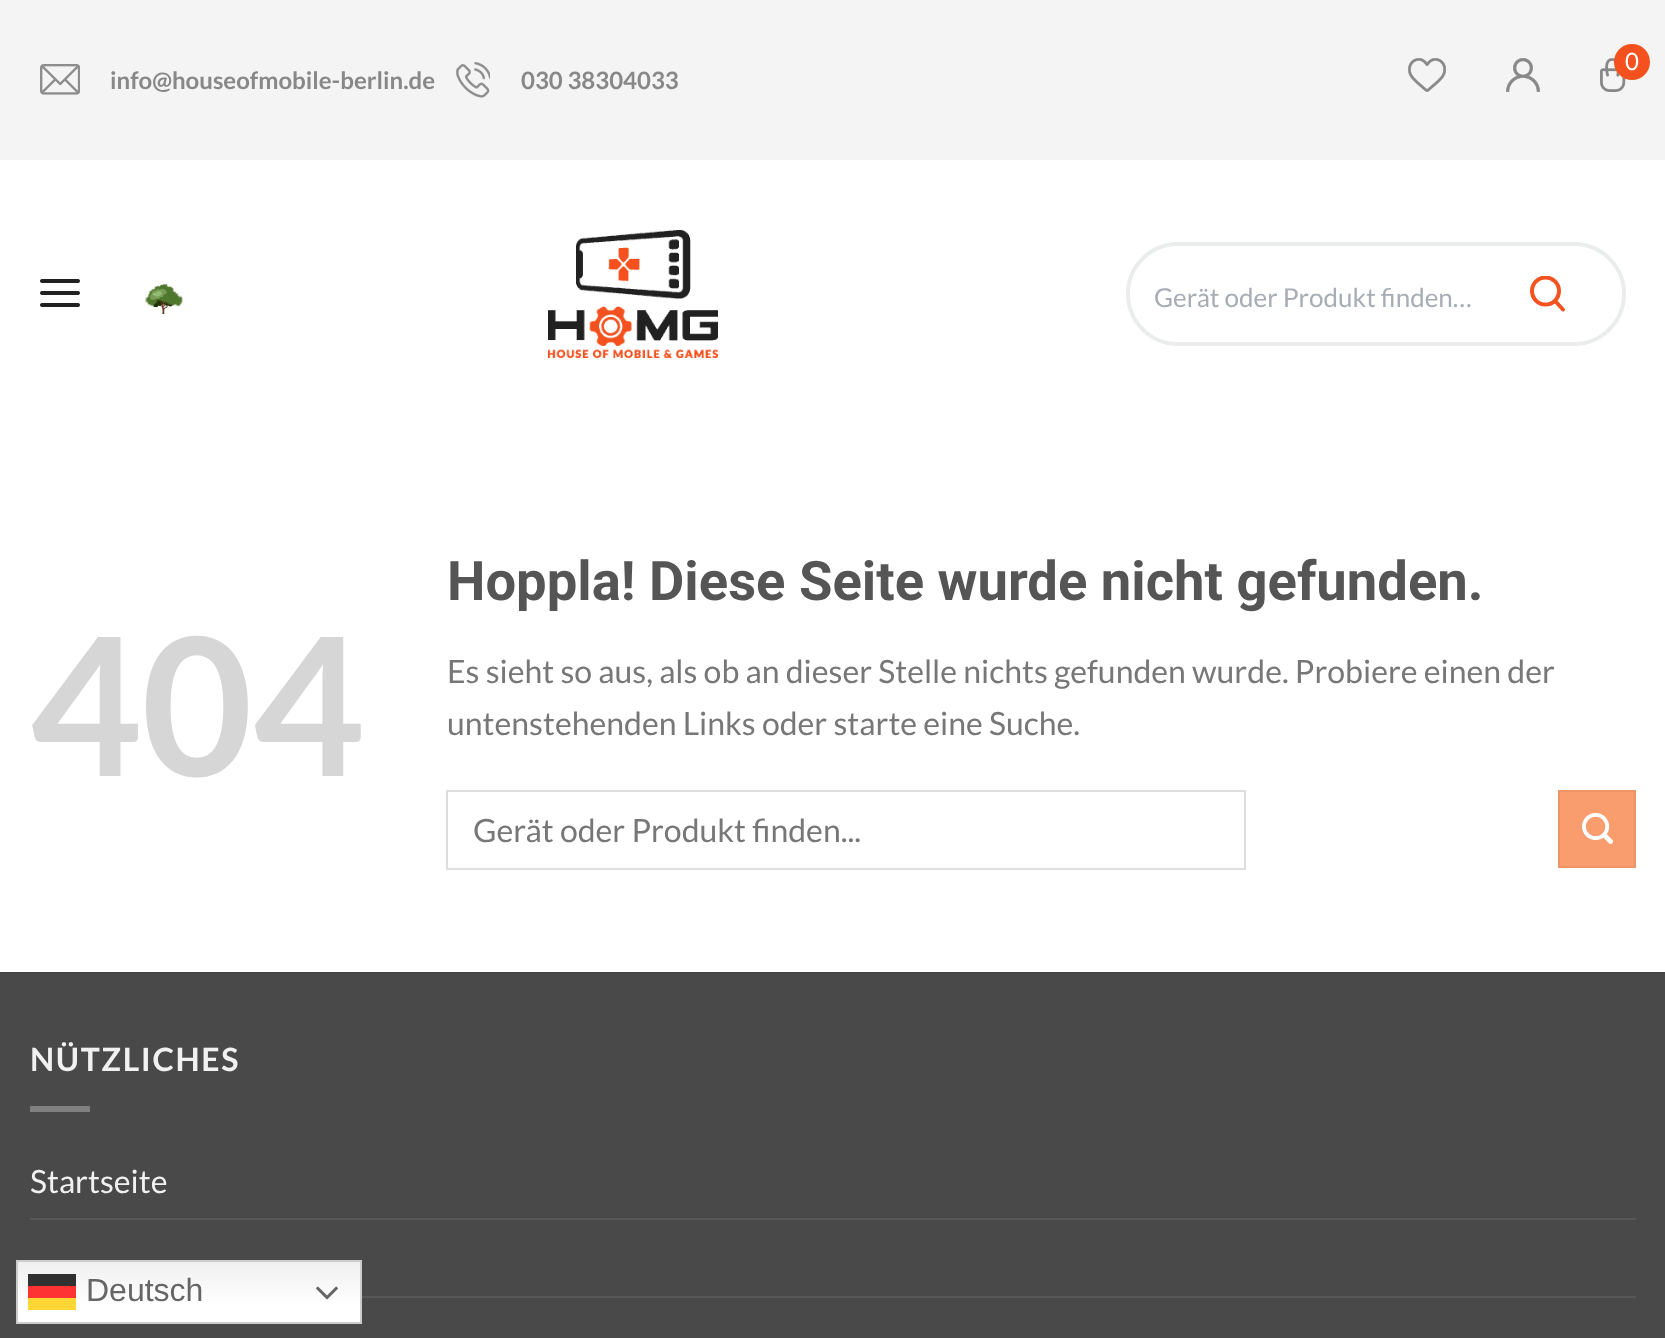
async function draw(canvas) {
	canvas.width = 1665;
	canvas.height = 1338;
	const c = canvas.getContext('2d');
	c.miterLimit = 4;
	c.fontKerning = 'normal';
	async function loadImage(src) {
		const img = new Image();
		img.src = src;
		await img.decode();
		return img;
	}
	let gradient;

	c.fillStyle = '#fff';
	c.fillRect(0, 0, 1665, 1338);
	c.fillStyle = '#f4f4f4';
	c.fillRect(0, 0, 1665, 160);
	c.drawImage(await loadImage('img1.png'), 1408, 58, 38, 34);
	c.drawImage(await loadImage('img2.png'), 1506, 58, 34, 34);
	c.drawImage(await loadImage('img3.png'), 1600, 58, 26, 34);
	c.fillStyle = '#f4511e';
	c.beginPath();
	c.arc(1632, 62, 18, 0, 2 * Math.PI);
	c.fill();
	c.font = '24px Lato';
	c.fillStyle = '#fff';
	c.fillText('0', 1625, 70);
	c.drawImage(await loadImage('img4.png'), 40, 64, 40, 31);
	c.font = 'bold 24px Lato';
	c.fillStyle = '#888';
	c.fillText('info@houseofmobile-berlin.de', 110, 89);
	c.drawImage(await loadImage('img5.png'), 456, 62, 34, 36);
	c.fillText('030 38304033', 521, 89);
	c.drawImage(await loadImage('img6.png'), 40, 279, 40, 28);
	c.drawImage(await loadImage('img7.png'), 145, 284, 38, 30);
	c.drawImage(await loadImage('img8.png'), 548, 230, 170, 128);
	c.beginPath();
	c.roundRect(1128, 244, 496, 100, 50);
	c.strokeStyle = '#ebeded';
	c.lineWidth = 4;
	c.stroke();
	c.font = '26px Lato';
	c.fillStyle = '#a6adb4';
	c.fillText('Gerät oder Produkt finden…', 1154, 307);
	c.save();
	c.beginPath();
	c.rect(1530, 276, 36, 36);
	c.clip();
	c.beginPath();
	c.arc(1545.5, 291, 13.5, 0, 2 * Math.PI);
	c.strokeStyle = '#f45220';
	c.stroke();
	c.restore();
	c.beginPath();
	c.moveTo(1563, 309.5);
	c.lineTo(1555, 301);
	c.strokeStyle = '#f45220';
	c.lineCap = 'round';
	c.lineJoin = 'round';
	c.stroke();
	c.font = 'bold 192px Lato';
	c.fillStyle = '#d6d6d6';
	c.fillText('404', 30, 776);
	c.font = 'bold 54.4px Roboto';
	c.fillStyle = '#555';
	c.fillText('Hoppla! Diese Seite wurde nicht gefunden.', 447, 600);
	c.font = '32px Lato';
	c.fillStyle = '#777';
	c.fillText('Es sieht so aus, als ob an dieser Stelle nichts gefunden wurde. Probiere einen der', 447, 683);
	c.fillText('untenstehenden Links oder starte eine Suche.', 447, 735);
	c.strokeStyle = '#ddd';
	c.lineWidth = 2;
	c.lineJoin = 'miter';
	c.strokeRect(447, 791, 798, 78);
	c.fillText('Gerät oder Produkt finden...', 473, 842);
	c.fillStyle = '#f99c6e';
	c.beginPath();
	c.rect(1559, 791, 76, 76);
	c.fill();
	c.strokeStyle = '#ed9469';
	c.stroke();
	c.drawImage(await loadImage('img9.png'), 1582, 812, 31, 32);
	c.fillStyle = '#494949';
	c.fillRect(0, 974, 1665, 364);
	c.fillStyle = '#454545';
	c.fillRect(0, 972, 1665, 2);
	c.letterSpacing = '1.6px';
	c.font = 'bold 32px Lato';
	c.fillStyle = '#f1f1f1';
	c.fillText('NÜTZLICHES', 30, 1071);
	c.fillStyle = '#808080';
	c.fillRect(30, 1106, 60, 6);
	c.letterSpacing = '0px';
	c.font = '32px Lato';
	c.fillStyle = '#f1f1f1';
	c.fillText('Startseite', 30, 1193);
	c.fillStyle = '#585858';
	c.fillRect(30, 1218, 1606, 2);
	c.fillRect(362, 1296, 1274, 2);
	gradient = c.createLinearGradient(189, 1260, 189, 1324);
	gradient.addColorStop(0, '#efefef');
	gradient.addColorStop(0.7, '#fff');
	c.fillStyle = gradient;
	c.fillRect(18, 1262, 342, 60);
	gradient = c.createLinearGradient(189, 1260, 189, 1324);
	gradient.addColorStop(0, '#fc3030');
	gradient.addColorStop(0.7, '#f33');
	c.fillStyle = gradient;
	c.fillRect(28, 1286, 48, 12);
	gradient = c.createLinearGradient(189, 1260, 189, 1324);
	gradient.addColorStop(0, '#303030');
	gradient.addColorStop(0.7, '#333');
	c.fillStyle = gradient;
	c.fillRect(28, 1274, 48, 12);
	c.strokeStyle = '#ccc';
	c.strokeRect(17, 1261, 344, 62);
	c.font = '32px Liberation Sans';
	c.fillStyle = '#666';
	c.fillText('Deutsch', 86, 1301);
	c.drawImage(await loadImage('img10.png'), 316, 1286, 22, 14);
	c.fillStyle = '#ffd633';
	c.fillRect(28, 1298, 48, 12);
}

draw(document.querySelector('canvas'));
